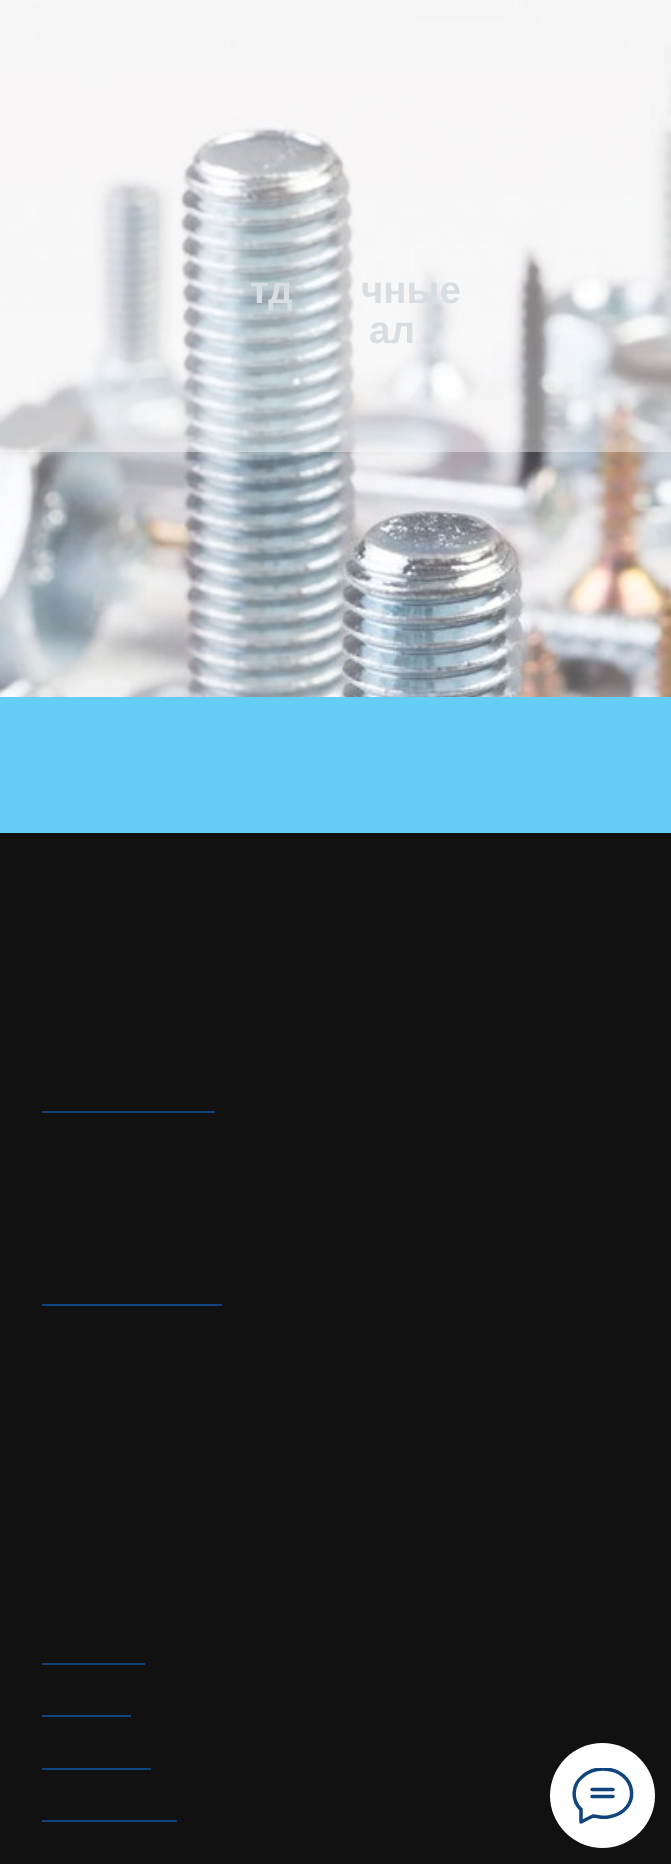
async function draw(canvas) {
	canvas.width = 671;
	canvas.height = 1864;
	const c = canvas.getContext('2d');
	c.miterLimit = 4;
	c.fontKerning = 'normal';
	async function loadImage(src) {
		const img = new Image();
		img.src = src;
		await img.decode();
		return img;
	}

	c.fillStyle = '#fff';
	c.fillRect(0, 0, 671, 1864);
	c.drawImage(await loadImage('img1.png'), 0, 0, 671, 697);
	c.fillStyle = '#ffffff66';
	c.fillRect(0, 0, 671, 452);
	c.font = 'bold 38.5px Liberation Sans';
	c.fillStyle = '#d7dde1';
	for (const [text, x, y] of [
		['тд', 250, 303],
		['чные', 361, 303],
		['ал', 369, 343],
	]) {
		c.fillText(text, x, y);
	}
	for (const [x, y, w, h, color] of [
		[0, 697, 671, 136, '#66cdf6'],
		[0, 833, 671, 1031, '#111'],
		[42, 1111, 173, 2, '#0f457c'],
		[42, 1304, 180, 2, '#0f457c'],
		[42, 1663, 103, 2, '#0f457c'],
		[42, 1715, 89, 2, '#0f457c'],
		[42, 1768, 109, 2, '#0f457c'],
		[42, 1820, 135, 2, '#0f457c'],
	]) {
		c.fillStyle = color;
		c.fillRect(x, y, w, h);
	}
	c.fillStyle = '#fff';
	c.beginPath();
	c.arc(602.5, 1795.5, 52.5, 0, 2 * Math.PI);
	c.fill();
	c.save();
	c.beginPath();
	c.rect(572, 1768, 62, 56);
	c.clip();
	c.beginPath();
	c.moveTo(592, 1789.5);
	c.lineTo(613, 1789.5);
	c.moveTo(592, 1796.5);
	c.lineTo(613, 1796.5);
	c.moveTo(580.5, 1809);
	c.bezierCurveTo(571.5, 1799.5, 572, 1785, 582.5, 1776.5);
	c.bezierCurveTo(588, 1771.5, 595.5, 1769, 603, 1769);
	c.bezierCurveTo(637, 1769, 643, 1811, 608.5, 1817);
	c.bezierCurveTo(602.5, 1818, 599, 1816.5, 593, 1816);
	c.lineTo(581, 1822);
	c.lineTo(581, 1809);
	c.closePath();
	c.strokeStyle = '#0f457c';
	c.lineWidth = 3.5;
	c.lineCap = 'round';
	c.lineJoin = 'round';
	c.stroke();
	c.restore();
}

draw(document.querySelector('canvas'));
